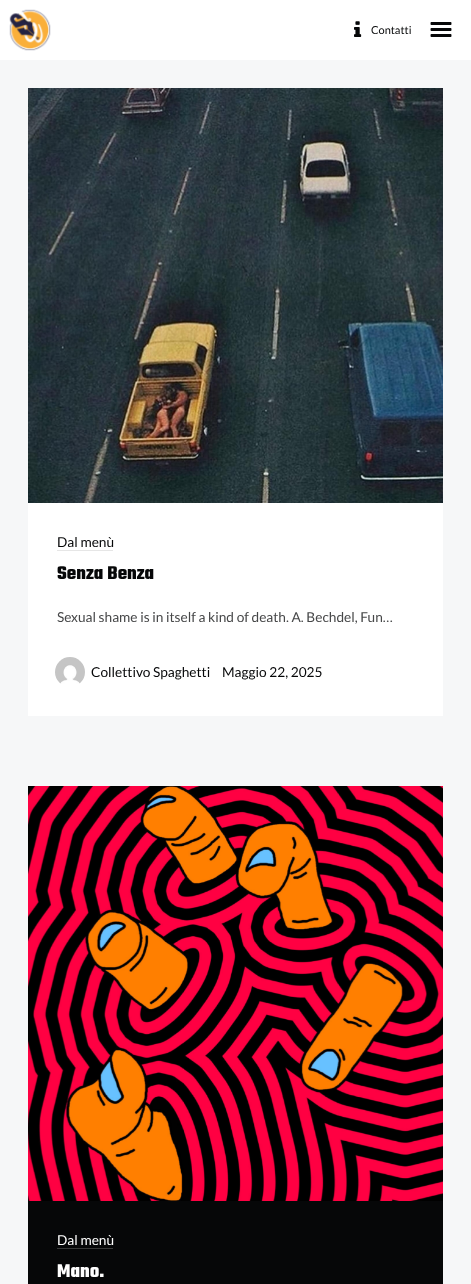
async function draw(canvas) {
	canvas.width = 471;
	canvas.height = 1284;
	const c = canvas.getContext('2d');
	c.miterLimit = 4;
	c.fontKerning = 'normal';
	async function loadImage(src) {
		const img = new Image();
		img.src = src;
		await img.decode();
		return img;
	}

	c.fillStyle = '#f6f7f8';
	c.fillRect(0, 0, 471, 1284);
	c.fillStyle = '#fff';
	c.fillRect(0, 0, 471, 60);
	c.drawImage(await loadImage('img1.png'), 9, 9, 42, 42);
	c.drawImage(await loadImage('img2.png'), 354, 21, 8, 16);
	c.font = '11px Lato';
	c.fillStyle = '#060708';
	c.fillText('Contatti', 371, 34);
	c.drawImage(await loadImage('img3.png'), 430, 22, 22, 15);
	c.drawImage(await loadImage('img4.png'), 28, 88, 415, 415);
	c.fillStyle = '#fff';
	c.fillRect(28, 503, 415, 213);
	c.font = '13.7px Lato';
	c.fillStyle = '#060708';
	c.fillText('Dal menù', 57, 547);
	c.fillStyle = '#e6e6e6';
	c.fillRect(57, 550, 56, 1);
	c.font = 'bold 20px Teko';
	c.fillStyle = '#060708';
	c.fillText('Senza Benza', 57, 579);
	c.font = '13.7px Lato';
	c.fillStyle = '#464748';
	c.fillText('Sexual shame is in itself a kind of death. A. Bechdel, Fun…', 57, 622);
	c.drawImage(await loadImage('img5.png'), 55, 657, 30, 27);
	c.fillStyle = '#060708';
	c.fillText('Collettivo Spaghetti', 91, 677);
	c.fillText('Maggio 22, 2025', 222, 677);
	c.drawImage(await loadImage('img6.png'), 28, 786, 415, 415);
	c.fillRect(28, 1201, 415, 83);
	c.fillStyle = '#fff';
	c.fillText('Dal menù', 57, 1245);
	c.fillStyle = '#383939';
	c.fillRect(57, 1248, 56, 1);
	c.font = 'bold 20px Teko';
	c.fillStyle = '#fff';
	c.fillText('Mano.', 57, 1277);
}

draw(document.querySelector('canvas'));
